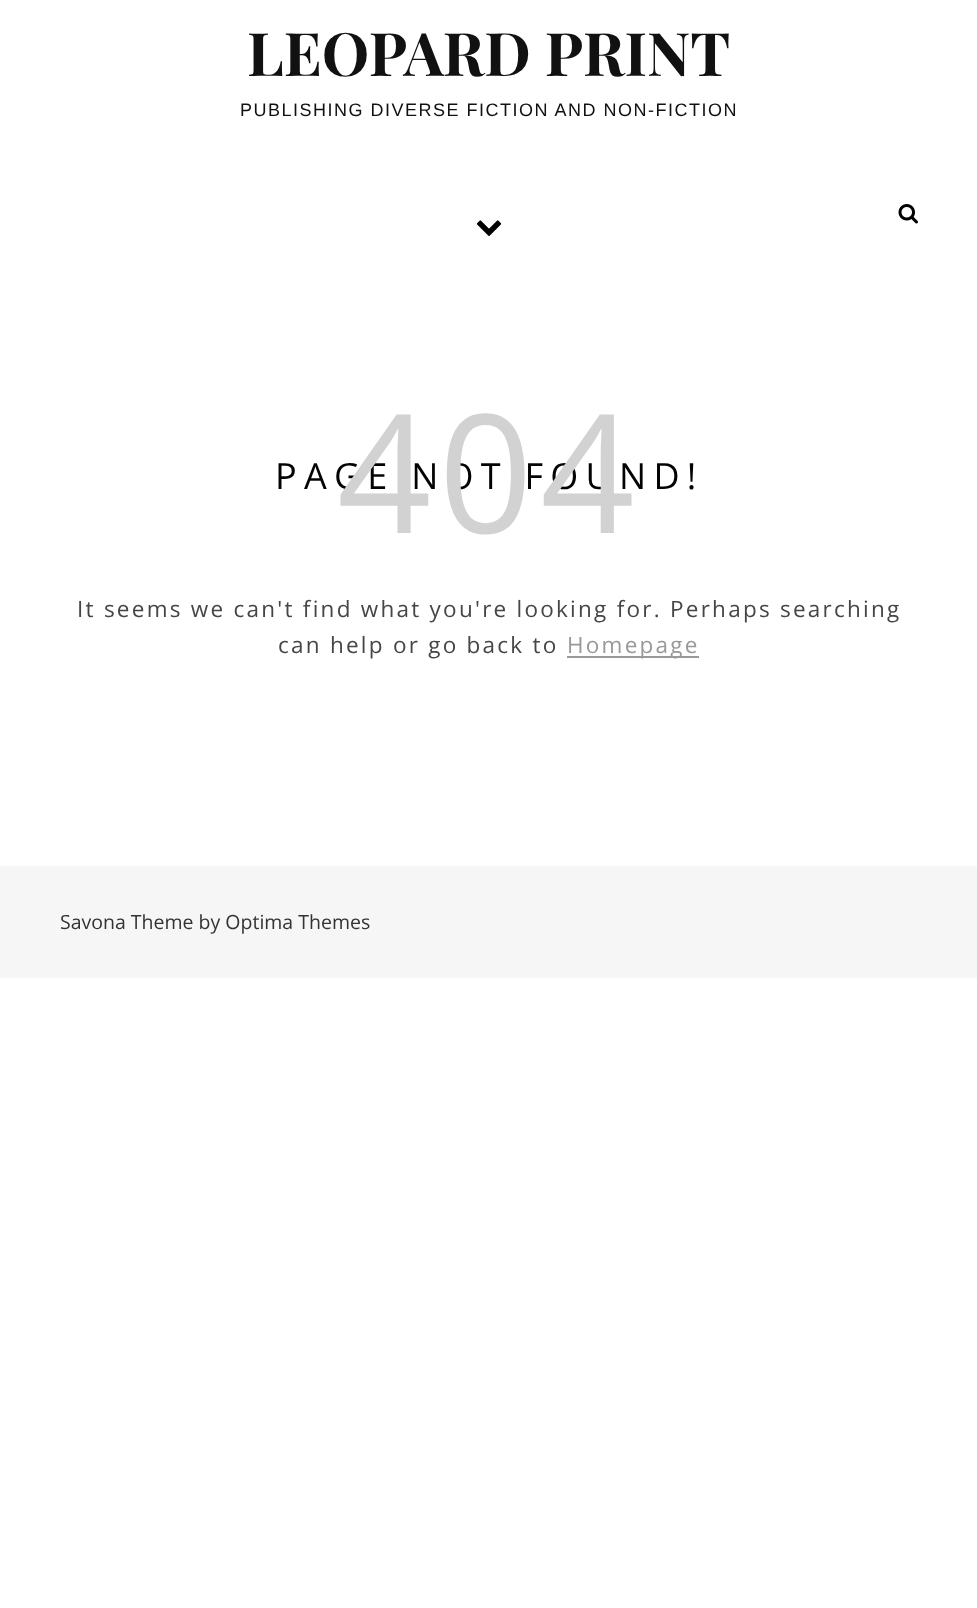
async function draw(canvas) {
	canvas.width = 977;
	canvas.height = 1608;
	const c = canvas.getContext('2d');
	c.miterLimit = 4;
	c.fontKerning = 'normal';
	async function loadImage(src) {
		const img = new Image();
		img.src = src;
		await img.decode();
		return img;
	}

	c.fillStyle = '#fff';
	c.fillRect(0, 0, 977, 1608);
	c.font = 'bold 60px Playfair Display';
	c.fillStyle = '#111';
	c.fillText('LEOPARD PRINT', 247, 76);
	c.letterSpacing = '1.5px';
	c.font = '18px Liberation Sans';
	c.fillText('PUBLISHING DIVERSE FICTION AND NON-FICTION', 240, 116);
	c.drawImage(await loadImage('img1.png'), 898, 204, 20, 20);
	c.drawImage(await loadImage('img2.png'), 476, 220, 26, 16);
	c.letterSpacing = '7.25px';
	c.font = '36px Open Sans';
	c.fillStyle = '#030303';
	c.fillText('PAGE NOT FOUND!', 275, 489);
	c.font = '165px Open Sans';
	c.fillStyle = '#d2d2d2';
	c.fillText('404', 337, 533);
	c.letterSpacing = '2.25px';
	c.font = '22.5px Open Sans';
	c.fillStyle = '#464646';
	c.fillText('It seems we can\'t find what you\'re looking for. Perhaps searching', 77, 617);
	c.fillText('can help or go back to', 278, 653);
	c.fillStyle = '#999';
	c.fillRect(567, 656, 132, 2);
	c.fillText('Homepage', 567, 653);
	c.fillStyle = '#f6f6f6';
	c.fillRect(0, 866, 977, 112);
	c.letterSpacing = '0px';
	c.font = '19.5px Open Sans';
	c.fillStyle = '#333';
	c.fillText('Savona Theme by Optima Themes', 60, 929);
}

draw(document.querySelector('canvas'));
